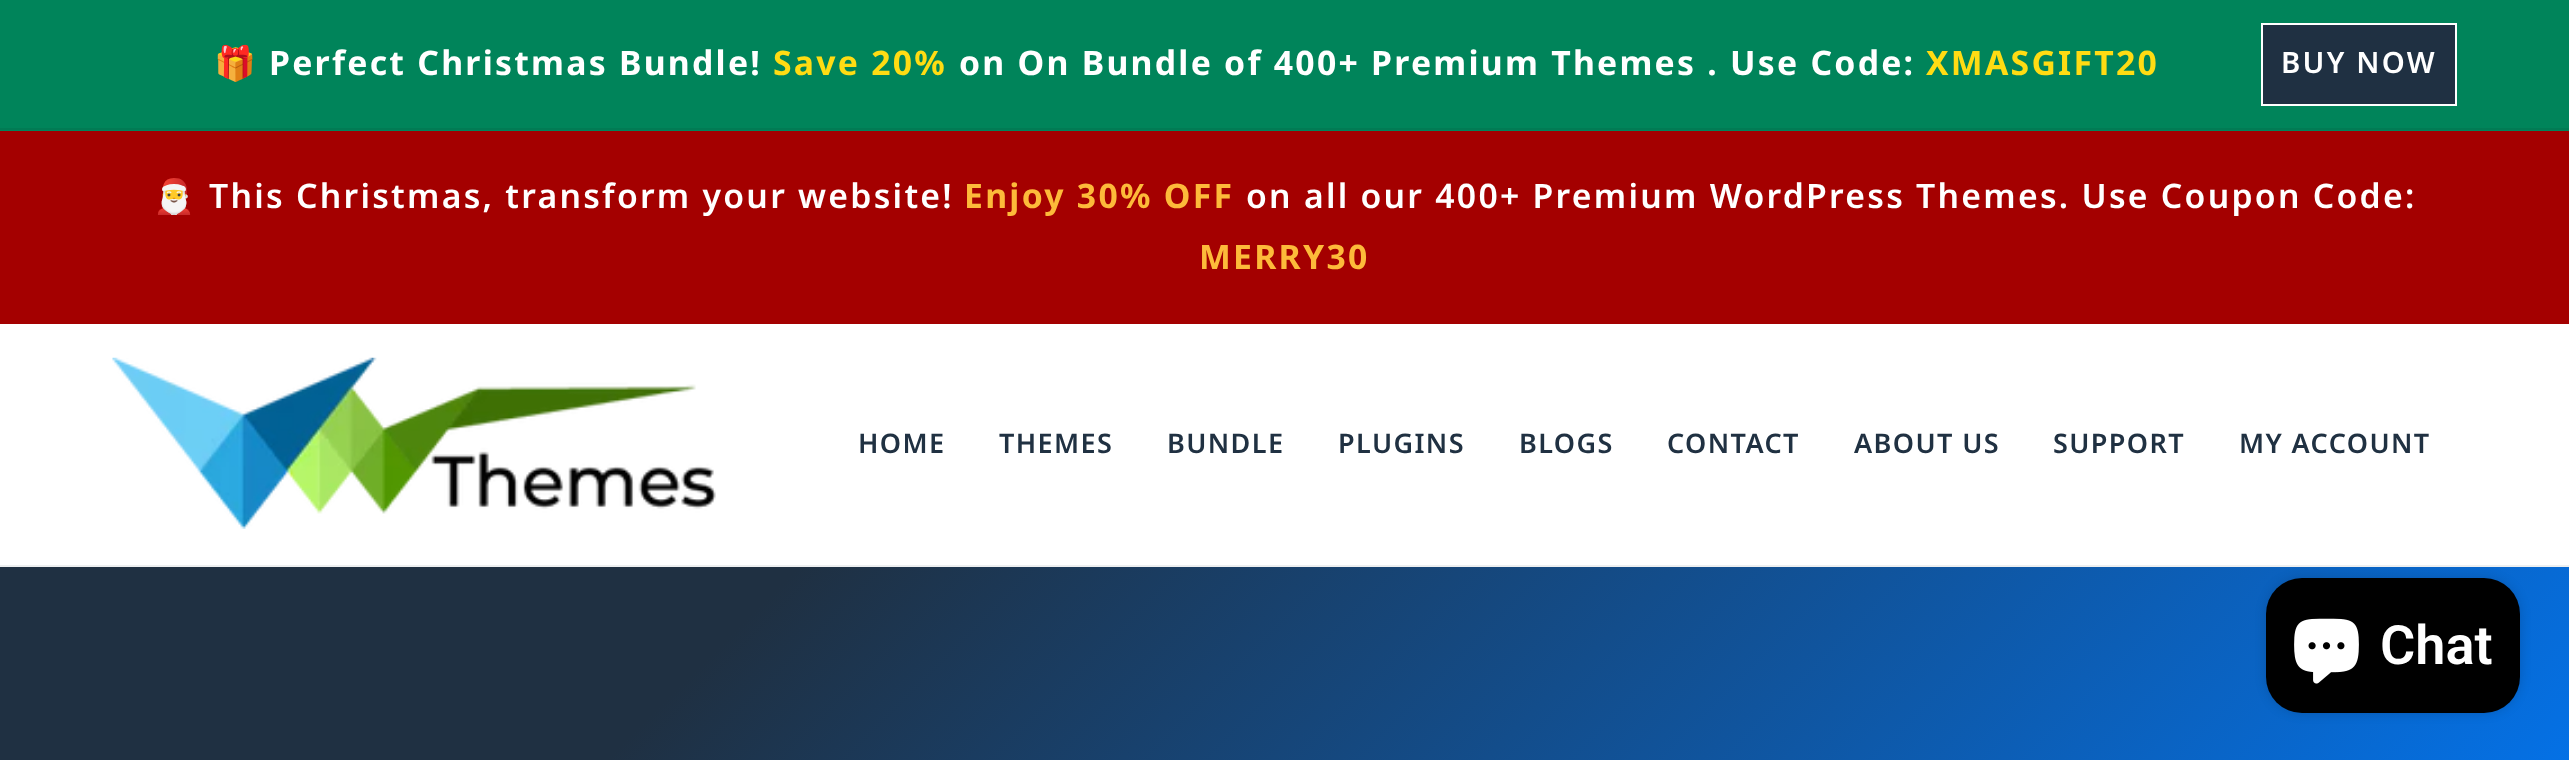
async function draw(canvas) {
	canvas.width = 2569;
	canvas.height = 760;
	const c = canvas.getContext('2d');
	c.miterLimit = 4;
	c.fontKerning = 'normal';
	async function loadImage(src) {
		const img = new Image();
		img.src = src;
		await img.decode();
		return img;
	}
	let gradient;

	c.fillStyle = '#fff';
	c.fillRect(0, 0, 2569, 760);
	c.fillStyle = '#00845a';
	c.fillRect(0, 0, 2569, 131);
	c.fillStyle = '#017b54';
	c.fillRect(0, 128, 2569, 2);
	c.letterSpacing = '2.25px';
	c.font = 'bold 33.75px Noto Color Emoji';
	c.fillStyle = '#fff';
	c.fillText('🎁', 214, 75);
	c.font = 'bold 33.75px Noto Sans';
	c.fillText('Perfect Christmas Bundle!', 269, 75);
	c.fillStyle = '#ffdc13';
	c.fillText('Save 20%', 773, 75);
	c.fillStyle = '#fff';
	c.fillText('on On Bundle of 400+ Premium Themes . Use Code:', 959, 75);
	c.fillStyle = '#ffdc13';
	c.fillText('XMASGIFT20', 1926, 75);
	c.fillStyle = '#1f3042';
	c.beginPath();
	c.rect(2262, 24, 194, 81);
	c.fill();
	c.strokeStyle = '#fff';
	c.lineWidth = 2;
	c.stroke();
	c.font = '600 29.25px Noto Sans';
	c.fillStyle = '#fff';
	c.fillText('BUY NOW', 2281, 73);
	c.fillStyle = '#a40000';
	c.fillRect(0, 131, 2569, 193);
	c.font = '33.75px Noto Color Emoji';
	c.fillStyle = '#fff';
	c.fillText('🎅', 153, 208);
	c.font = '600 33.75px Noto Sans';
	c.fillText('This Christmas, transform your website!', 209, 208);
	c.font = 'bold 33.75px Noto Sans';
	c.fillStyle = '#fdba3a';
	c.fillText('Enjoy 30% OFF', 964, 208);
	c.font = '600 33.75px Noto Sans';
	c.fillStyle = '#fff';
	c.fillText('on all our 400+ Premium WordPress Themes. Use Coupon Code:', 1246, 208);
	c.font = 'bold 33.75px Noto Sans';
	c.fillStyle = '#fdba3a';
	c.fillText('MERRY30', 1199, 269);
	c.fillStyle = '#edeff0';
	c.fillRect(0, 565, 2569, 2);
	c.drawImage(await loadImage('img1.png'), 112, 357, 604, 172);
	c.letterSpacing = '1.4px';
	c.font = '600 27px Noto Sans';
	c.fillStyle = '#203142';
	for (const [text, x, y] of [
		['HOME', 858, 453],
		['THEMES', 999, 453],
		['BUNDLE', 1167, 453],
		['PLUGINS', 1338, 453],
		['BLOGS', 1519, 453],
		['CONTACT', 1667, 453],
		['ABOUT US', 1854, 453],
		['SUPPORT', 2053, 453],
		['MY ACCOUNT', 2239, 453],
	]) {
		c.fillText(text, x, y);
	}
	gradient = c.createLinearGradient(2053, 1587, 516, 51);
	gradient.addColorStop(0, '#007bff');
	gradient.addColorStop(0.74, '#1f3042');
	c.fillStyle = gradient;
	c.fillRect(0, 567, 2569, 193);
	c.fillStyle = '#00000026';
	c.filter = 'blur(5.5px)';
	c.beginPath();
	c.roundRect(2266, 578, 254, 135, 36);
	c.fill();
	c.filter = 'none';
	c.fillStyle = '#000';
	c.beginPath();
	c.roundRect(2266, 578, 254, 135, 36);
	c.fill();
	c.drawImage(await loadImage('img2.png'), 2294, 618, 65, 66);
	c.letterSpacing = '0px';
	c.font = '600 54px Roboto';
	c.fillStyle = '#fff';
	c.fillText('Chat', 2380, 664);
}

draw(document.querySelector('canvas'));
